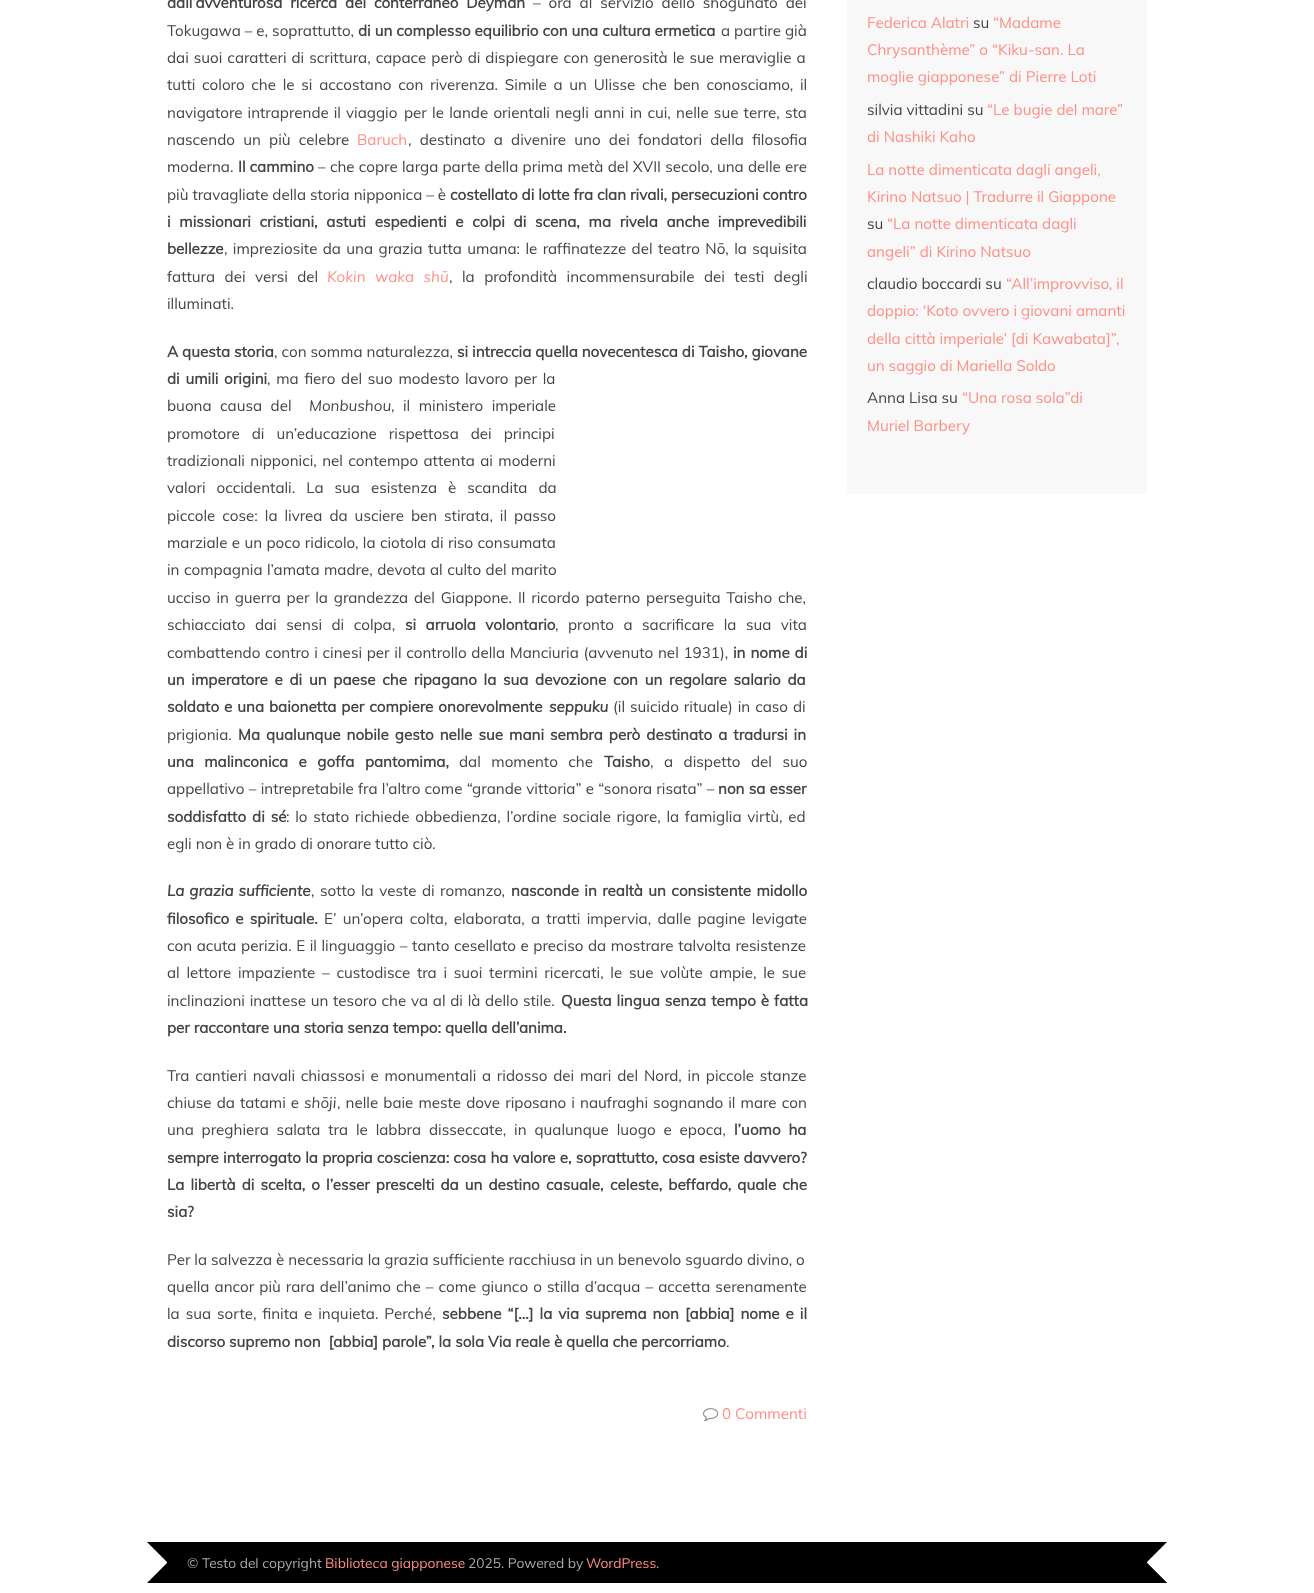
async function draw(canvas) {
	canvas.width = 1314;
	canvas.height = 1593;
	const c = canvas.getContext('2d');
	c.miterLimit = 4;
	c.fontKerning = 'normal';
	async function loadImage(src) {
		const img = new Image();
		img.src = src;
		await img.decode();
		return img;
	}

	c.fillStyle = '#fff';
	c.fillRect(0, 0, 1314, 1593);
	c.wordSpacing = '3.9px';
	c.font = 'bold 15.2px Muli';
	c.fillStyle = '#444';
	c.fillText('dall’avventurosa ricerca del conterraneo Deyman', 167, 8);
	c.font = '15.2px Muli';
	c.fillText('– ora al servizio dello shogunato dei', 533, 8);
	c.wordSpacing = '0px';
	c.fillText('Tokugawa – e, soprattutto,', 167, 36);
	c.font = 'bold 15.2px Muli';
	c.fillText('di un complesso equilibrio con una cultura ermetica', 358, 36);
	c.font = '15.2px Muli';
	c.fillText('a partire già', 721, 36);
	c.wordSpacing = '1px';
	c.fillText('dai suoi caratteri di scrittura, capace però di dispiegare con generosità le sue meraviglie a', 167, 63);
	c.wordSpacing = '2.75px';
	c.fillText('tutti coloro che le si accostano con riverenza. Simile a un Ulisse che ben conosciamo, il', 167, 90);
	c.wordSpacing = '1px';
	c.fillText('navigatore intraprende il viaggio', 167, 118);
	c.wordSpacing = '1.25px';
	c.fillText('per le lande orientali negli anni in cui, nelle sue terre, sta', 404, 118);
	c.wordSpacing = '4.25px';
	c.fillText('nascendo un più celebre', 167, 145);
	c.wordSpacing = '0px';
	c.fillStyle = '#ff8f85';
	c.fillText('Baruch', 357, 145);
	c.wordSpacing = '4.25px';
	c.fillStyle = '#444';
	c.fillText(', destinato a divenire uno dei fondatori della filosofia', 408, 145);
	c.wordSpacing = '0px';
	c.fillText('moderna.', 167, 172);
	c.font = 'bold 15.2px Muli';
	c.fillText('Il cammino', 238, 172);
	c.wordSpacing = '0.25px';
	c.font = '15.2px Muli';
	c.fillText('– che copre larga parte della prima metà del XVII secolo, una delle ere', 318, 172);
	c.wordSpacing = '0px';
	c.fillText('più travagliate della storia nipponica – è', 167, 200);
	c.font = 'bold 15.2px Muli';
	c.fillText('costellato di lotte fra clan rivali, persecuzioni contro', 450, 200);
	c.wordSpacing = '4.75px';
	c.fillText('i missionari cristiani, astuti espedienti e colpi di scena, ma rivela anche imprevedibili', 167, 227);
	c.wordSpacing = '0px';
	c.fillText('bellezze', 167, 254);
	c.wordSpacing = '1.4px';
	c.font = '15.2px Muli';
	c.fillText(', impreziosite da una grazia tutta umana: le raffinatezze del teatro Nō, la squisita', 224, 254);
	c.wordSpacing = '5.5px';
	c.fillText('fattura dei versi del', 167, 282);
	c.font = 'italic 15.2px Muli';
	c.fillStyle = '#ff8f85';
	c.fillText('Kokin waka shū', 327, 282);
	c.font = '15.2px Muli';
	c.fillStyle = '#444';
	c.fillText(', la profondità incommensurabile dei testi degli', 449, 282);
	c.wordSpacing = '0px';
	c.fillText('illuminati.', 167, 309);
	c.font = 'bold 15.2px Muli';
	c.fillText('A questa storia', 167, 357);
	c.font = '15.2px Muli';
	c.fillText(', con somma naturalezza,', 274, 357);
	c.font = 'bold 15.2px Muli';
	c.fillText('si intreccia quella novecentesca di Taisho, giovane', 457, 357);
	c.wordSpacing = '1.75px';
	c.fillText('di umili origini', 167, 384);
	c.font = '15.2px Muli';
	c.fillText(', ma fiero del suo modesto', 267, 384);
	c.fillText('lavoro per la', 465, 384);
	c.wordSpacing = '4.5px';
	c.fillText('buona causa del', 167, 411);
	c.wordSpacing = '0px';
	c.font = 'italic 15.2px Muli';
	c.fillText('Monbushou', 309, 411);
	c.wordSpacing = '4.5px';
	c.font = '15.2px Muli';
	c.fillText(', il ministero imperiale', 391, 411);
	c.wordSpacing = '8px';
	c.fillText('promotore di un’educazione rispettosa dei principi', 167, 439);
	c.wordSpacing = '1.4px';
	c.fillText('tradizionali nipponici, nel contempo attenta ai moderni', 167, 466);
	c.wordSpacing = '7px';
	c.fillText('valori occidentali. La sua esistenza è scandita da', 167, 493);
	c.wordSpacing = '3px';
	c.fillText('piccole cose: la livrea da usciere ben stirata, il passo', 167, 521);
	c.wordSpacing = '0.4px';
	c.fillText('marziale e un poco ridicolo, la ciotola di riso consumata', 167, 548);
	c.wordSpacing = '0.5px';
	c.fillText('in compagnia l’amata madre, devota al culto del marito', 167, 575);
	c.wordSpacing = '1.8px';
	c.fillText('ucciso in guerra per la grandezza del Giappone. Il ricordo paterno perseguita Taisho che,', 167, 603);
	c.wordSpacing = '5.5px';
	c.fillText('schiacciato dai sensi di colpa,', 167, 630);
	c.font = 'bold 15.2px Muli';
	c.fillText('si arruola volontario', 405, 630);
	c.font = '15.2px Muli';
	c.fillText(', pronto a sacrificare la sua vita', 555, 630);
	c.wordSpacing = '0.75px';
	c.fillText('combattendo contro i cinesi per il controllo della Manciuria (avvenuto nel 1931),', 167, 658);
	c.wordSpacing = '1px';
	c.font = 'bold 15.2px Muli';
	c.fillText('in nome di', 733, 658);
	c.wordSpacing = '2.75px';
	c.fillText('un imperatore e di un paese che ripagano la sua devozione con un regolare salario da', 167, 685);
	c.wordSpacing = '1px';
	c.fillText('soldato e una baionetta per compiere onorevolmente', 167, 712);
	c.wordSpacing = '0px';
	c.font = 'italic bold 15.2px Muli';
	c.fillText('seppuku', 549, 712);
	c.wordSpacing = '1px';
	c.font = '15.2px Muli';
	c.fillText('(il suicido rituale) in caso di', 613, 712);
	c.wordSpacing = '0px';
	c.fillText('prigionia.', 167, 740);
	c.wordSpacing = '2.1px';
	c.font = 'bold 15.2px Muli';
	c.fillText('Ma qualunque nobile gesto nelle sue mani sembra però destinato a tradursi in', 238, 740);
	c.wordSpacing = '6.5px';
	c.fillText('una malinconica e goffa pantomima,', 167, 767);
	c.font = '15.2px Muli';
	c.fillText('dal momento che', 459, 767);
	c.wordSpacing = '0px';
	c.font = 'bold 15.2px Muli';
	c.fillText('Taisho', 604, 767);
	c.wordSpacing = '6.5px';
	c.font = '15.2px Muli';
	c.fillText(', a dispetto del suo', 650, 767);
	c.wordSpacing = '0.25px';
	c.fillText('appellativo – intrepretabile fra l’altro come “grande vittoria” e “sonora risata” –', 167, 794);
	c.font = 'bold 15.2px Muli';
	c.fillText('non sa esser', 718, 794);
	c.wordSpacing = '2px';
	c.fillText('soddisfatto di sé', 167, 822);
	c.wordSpacing = '1.75px';
	c.font = '15.2px Muli';
	c.fillText(': lo stato richiede obbedienza, l’ordine sociale rigore, la famiglia virtù, ed', 286, 822);
	c.wordSpacing = '0px';
	c.fillText('egli non è in grado di onorare tutto ciò.', 167, 849);
	c.wordSpacing = '1px';
	c.font = 'italic bold 15.2px Muli';
	c.fillText('La grazia sufficiente', 167, 896);
	c.wordSpacing = '1.5px';
	c.font = '15.2px Muli';
	c.fillText(', sotto la veste di romanzo,', 311, 896);
	c.wordSpacing = '1.4px';
	c.font = 'bold 15.2px Muli';
	c.fillText('nasconde in realtà un consistente midollo', 511, 896);
	c.wordSpacing = '2.25px';
	c.fillText('filosofico e spirituale.', 167, 924);
	c.font = '15.2px Muli';
	c.fillText('E’ un’opera colta, elaborata, a tratti impervia, dalle pagine levigate', 324, 924);
	c.wordSpacing = '0.6px';
	c.fillText('con acuta perizia. E il linguaggio – tanto cesellato e preciso da mostrare talvolta resistenze', 167, 951);
	c.wordSpacing = '2.75px';
	c.fillText('al lettore impaziente – custodisce tra i suoi termini ricercati, le sue volùte ampie, le sue', 167, 978);
	c.wordSpacing = '0.75px';
	c.fillText('inclinazioni inattese un tesoro che va al di là dello stile.', 167, 1006);
	c.wordSpacing = '1px';
	c.font = 'bold 15.2px Muli';
	c.fillText('Questa lingua senza tempo è fatta', 561, 1006);
	c.wordSpacing = '0px';
	c.fillText('per raccontare una storia senza tempo: quella dell’anima.', 167, 1033);
	c.wordSpacing = '1.75px';
	c.font = '15.2px Muli';
	c.fillText('Tra cantieri navali chiassosi e monumentali a ridosso dei mari del Nord, in piccole stanze', 167, 1081);
	c.wordSpacing = '1.1px';
	c.fillText('chiuse da tatami e', 167, 1108);
	c.wordSpacing = '0px';
	c.font = 'italic 15.2px Muli';
	c.fillText('shōji', 304, 1108);
	c.wordSpacing = '1.1px';
	c.font = '15.2px Muli';
	c.fillText(', nelle baie meste dove riposano i naufraghi sognando il mare con', 337, 1108);
	c.wordSpacing = '3.9px';
	c.fillText('una preghiera salata tra le labbra disseccate, in qualunque luogo e epoca,', 167, 1135);
	c.font = 'bold 15.2px Muli';
	c.fillText('l’uomo ha', 734, 1135);
	c.wordSpacing = '0.25px';
	c.fillText('sempre interrogato la propria coscienza: cosa ha valore e, soprattutto, cosa esiste davvero?', 167, 1163);
	c.wordSpacing = '2.1px';
	c.fillText('La libertà di scelta, o l’esser prescelti da un destino', 167, 1190);
	c.wordSpacing = '0px';
	c.fillText('casuale,', 546, 1190);
	c.wordSpacing = '2.1px';
	c.fillText('celeste, beffardo, quale che', 610, 1190);
	c.wordSpacing = '0px';
	c.fillText('sia?', 167, 1217);
	c.font = '15.2px Muli';
	c.fillText('Per la salvezza è necessaria la grazia sufficiente racchiusa in un benevolo sguardo divino, o', 167, 1265);
	c.wordSpacing = '1.1px';
	c.fillText('quella ancor più rara dell’animo che – come giunco o stilla d’acqua – accetta serenamente', 167, 1292);
	c.wordSpacing = '2px';
	c.fillText('la sua sorte, finita e inquieta. Perché,', 167, 1319);
	c.font = 'bold 15.2px Muli';
	c.fillText('sebbene “[…] la via suprema non [abbia] nome e il', 442, 1319);
	c.wordSpacing = '0px';
	c.fillText('discorso supremo non  [abbia] parole”, la sola Via reale è quella che percorriamo', 167, 1347);
	c.font = '15.2px Muli';
	c.fillText('.', 726, 1347);
	c.drawImage(await loadImage('img1.png'), 703, 1408, 16, 14);
	c.fillStyle = '#ff8f85';
	c.fillText('0 Commenti', 722, 1419);
	c.fillStyle = '#f8f8f8';
	c.fillRect(847, 0, 300, 494);
	c.fillStyle = '#ff8f85';
	c.fillText('Federica Alatri', 867, 28);
	c.fillStyle = '#444';
	c.fillText('su', 973, 28);
	c.fillStyle = '#ff8f85';
	for (const [text, x, y] of [
		['“Madame', 993, 28],
		['Chrysanthème” o “Kiku-san. La', 867, 55],
		['moglie giapponese” di Pierre Loti', 867, 82],
	]) {
		c.fillText(text, x, y);
	}
	c.fillStyle = '#444';
	c.fillText('silvia vittadini su', 867, 115);
	c.fillStyle = '#ff8f85';
	for (const [text, x, y] of [
		['“Le bugie del mare”', 987, 115],
		['di Nashiki Kaho', 867, 142],
		['La notte dimenticata dagli angeli,', 867, 175],
		['Kirino Natsuo | Tradurre il Giappone', 867, 202],
	]) {
		c.fillText(text, x, y);
	}
	c.fillStyle = '#444';
	c.fillText('su', 867, 229);
	c.fillStyle = '#ff8f85';
	c.fillText('“La notte dimenticata dagli', 887, 229);
	c.fillText('angeli” di Kirino Natsuo', 867, 257);
	c.fillStyle = '#444';
	c.fillText('claudio boccardi su', 867, 289);
	c.fillStyle = '#ff8f85';
	for (const [text, x, y] of [
		['“All’improvviso, il', 1006, 289],
		['doppio: ‘Koto ovvero i giovani amanti', 867, 316],
		['della città imperiale’ [di Kawabata]”,', 867, 344],
		['un saggio di Mariella Soldo', 867, 371],
	]) {
		c.fillText(text, x, y);
	}
	c.fillStyle = '#444';
	c.fillText('Anna Lisa su', 867, 403);
	c.fillStyle = '#ff8f85';
	c.fillText('“Una rosa sola”di', 962, 403);
	c.fillText('Muriel Barbery', 867, 431);
	c.fillStyle = '#000';
	c.fillRect(147, 1542, 1020, 41);
	c.fillStyle = '#fff';
	c.beginPath();
	c.moveTo(147, 1583);
	c.lineTo(147, 1542);
	c.lineTo(167, 1562);
	c.lineTo(167, 1563);
	c.closePath();
	c.fill();
	c.font = '13.75px Muli';
	c.fillStyle = '#aaa';
	c.fillText('© Testo del copyright', 187, 1568);
	c.fillStyle = '#ff8f85';
	c.fillText('Biblioteca giapponese', 325, 1568);
	c.fillStyle = '#aaa';
	c.fillText('2025. Powered by', 468, 1568);
	c.fillStyle = '#ff8f85';
	c.fillText('WordPress', 586, 1568);
	c.fillStyle = '#aaa';
	c.fillText('.', 656, 1568);
	c.fillStyle = '#fff';
	c.beginPath();
	c.moveTo(1167, 1542);
	c.lineTo(1167, 1583);
	c.lineTo(1147, 1563);
	c.lineTo(1147, 1562);
	c.closePath();
	c.fill();
	c.fillStyle = '#000';
	c.beginPath();
	c.moveTo(1167, 1583);
	c.lineTo(1134, 1583);
	c.lineTo(1147, 1563);
	c.closePath();
	c.fill();
}

draw(document.querySelector('canvas'));
